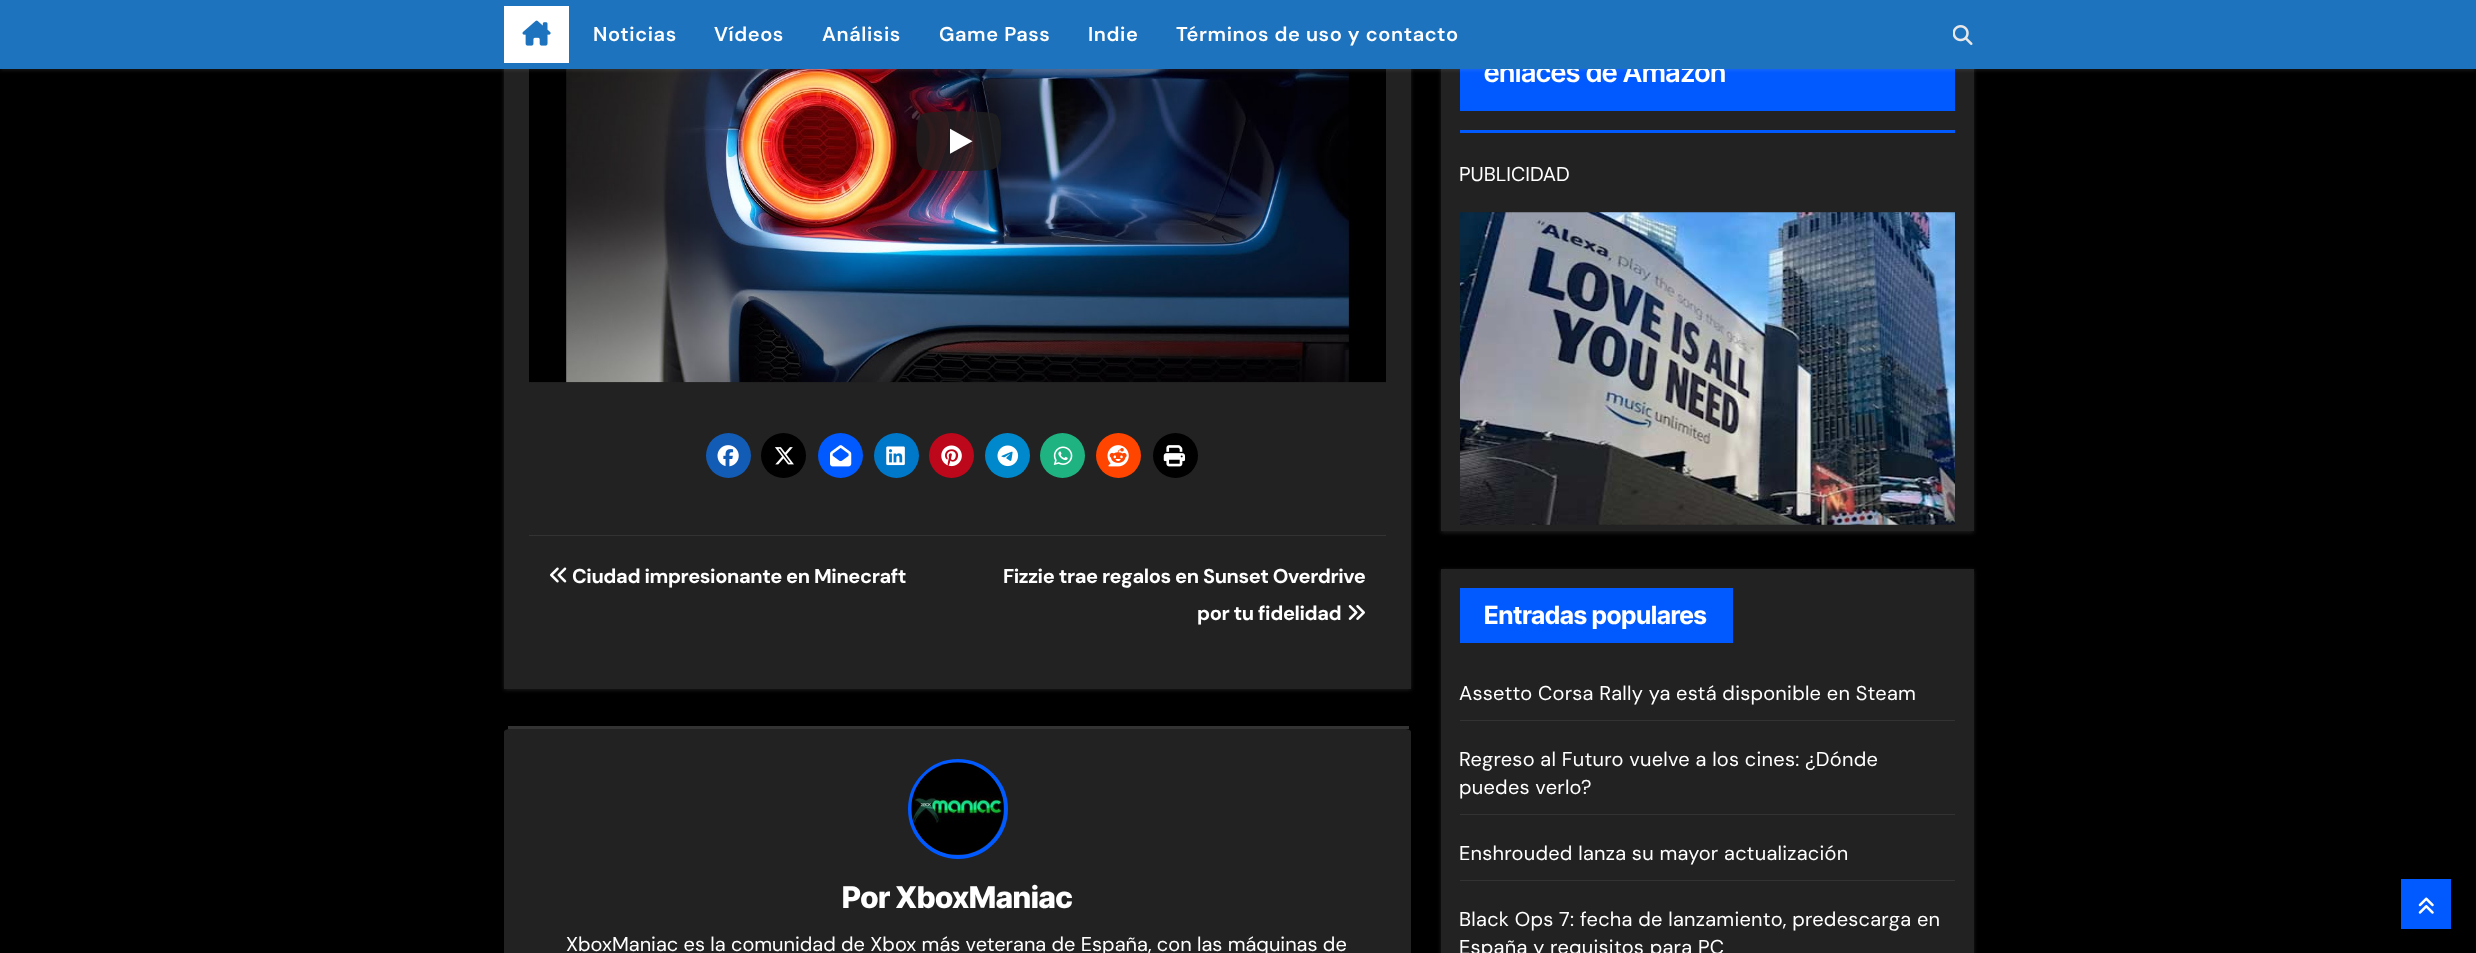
async function draw(canvas) {
	canvas.width = 2476;
	canvas.height = 953;
	const c = canvas.getContext('2d');
	c.miterLimit = 4;
	c.fontKerning = 'normal';
	async function loadImage(src) {
		const img = new Image();
		img.src = src;
		await img.decode();
		return img;
	}

	c.fillStyle = '#000';
	c.fillRect(0, 0, 2476, 953);
	c.fillStyle = '#b9b9b926';
	c.filter = 'blur(2px)';
	c.beginPath();
	c.rect(504, -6, 907, 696);
	c.fill();
	c.filter = 'none';
	c.fillStyle = '#222';
	c.fillRect(504, 69, 907, 620);
	c.drawImage(await loadImage('img3.png'), 529, 69, 857, 314);
	c.fillStyle = '#b9b9b926';
	c.filter = 'blur(2px)';
	c.beginPath();
	c.rect(1441, -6, 533, 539);
	c.fill();
	c.filter = 'none';
	c.fillStyle = '#222';
	c.fillRect(1441, 69, 533, 462);
	c.fillStyle = '#005aff';
	c.fillRect(1460, 69, 495, 42);
	c.fillStyle = '#b9b9b926';
	c.filter = 'blur(2px)';
	c.beginPath();
	c.rect(0, 1, 2476, 69);
	c.fill();
	c.filter = 'none';
	c.font = '600 27.5px Inter Tight';
	c.fillStyle = '#fff';
	c.fillText('enlaces de Amazon', 1484, 82);
	c.fillStyle = '#1e73be';
	c.fillRect(0, 0, 2476, 69);
	c.fillStyle = '#fff';
	c.fillRect(504, 6, 65, 57);
	c.drawImage(await loadImage('img1.png'), 522, 20, 29, 26);
	c.letterSpacing = '0.6px';
	c.font = '600 20px DM Sans';
	for (const [text, x, y] of [
		['Noticias', 593, 41],
		['Vídeos', 714, 41],
		['Análisis', 822, 41],
		['Game Pass', 939, 41],
		['Indie', 1088, 41],
		['Términos de uso y contacto', 1176, 41],
	]) {
		c.fillText(text, x, y);
	}
	c.drawImage(await loadImage('img2.png'), 1953, 25, 20, 20);
	c.drawImage(await loadImage('img4.png'), 916, 111, 85, 60);
	c.fillStyle = '#135cb6';
	c.beginPath();
	c.arc(728.5, 455.5, 22.5, 0, 2 * Math.PI);
	c.fill();
	c.drawImage(await loadImage('img5.png'), 717, 445, 22, 22);
	c.fillStyle = '#000';
	c.beginPath();
	c.arc(783.5, 455.5, 22.5, 0, 2 * Math.PI);
	c.fill();
	c.drawImage(await loadImage('img6.png'), 775, 447, 19, 18);
	c.fillStyle = '#005aff';
	c.beginPath();
	c.arc(840.5, 455.5, 22.5, 0, 2 * Math.PI);
	c.fill();
	c.drawImage(await loadImage('img7.png'), 830, 445, 22, 22);
	c.fillStyle = '#0078ca';
	c.beginPath();
	c.arc(896.5, 455.5, 22.5, 0, 2 * Math.PI);
	c.fill();
	c.drawImage(await loadImage('img8.png'), 886, 446, 19, 20);
	c.fillStyle = '#bd081c';
	c.beginPath();
	c.arc(951.5, 455.5, 22.5, 0, 2 * Math.PI);
	c.fill();
	c.drawImage(await loadImage('img9.png'), 941, 445, 21, 22);
	c.fillStyle = '#08c';
	c.beginPath();
	c.arc(1007.5, 455.5, 22.5, 0, 2 * Math.PI);
	c.fill();
	c.drawImage(await loadImage('img10.png'), 997, 445, 22, 22);
	c.fillStyle = '#1fb381';
	c.beginPath();
	c.arc(1062.5, 455.5, 22.5, 0, 2 * Math.PI);
	c.fill();
	c.drawImage(await loadImage('img11.png'), 1053, 446, 20, 19);
	c.fillStyle = '#ff4500';
	c.beginPath();
	c.arc(1118.5, 455.5, 22.5, 0, 2 * Math.PI);
	c.fill();
	c.drawImage(await loadImage('img12.png'), 1107, 445, 22, 22);
	c.fillStyle = '#000';
	c.beginPath();
	c.arc(1175.5, 455.5, 22.5, 0, 2 * Math.PI);
	c.fill();
	c.drawImage(await loadImage('img13.png'), 1163, 445, 22, 22);
	c.fillStyle = '#333';
	c.fillRect(529, 535, 857, 1);
	c.drawImage(await loadImage('img14.png'), 550, 567, 17, 16);
	c.letterSpacing = '-0.4px';
	c.font = 'bold 20px DM Sans';
	c.fillStyle = '#fff';
	for (const [text, x, y] of [
		['Ciudad impresionante en Minecraft', 572, 583],
		['Fizzie trae regalos en Sunset Overdrive', 1003, 583],
		['por tu fidelidad', 1197, 620],
	]) {
		c.fillText(text, x, y);
	}
	c.drawImage(await loadImage('img15.png'), 1348, 605, 17, 15);
	c.fillStyle = '#222';
	c.beginPath();
	c.moveTo(510, 729);
	c.lineTo(1405, 729);
	c.bezierCurveTo(1408, 729, 1411, 730, 1411, 732);
	c.lineTo(1411, 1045);
	c.bezierCurveTo(1411, 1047, 1408, 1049, 1405, 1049);
	c.lineTo(510, 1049);
	c.bezierCurveTo(507, 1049, 504, 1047, 504, 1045);
	c.lineTo(504, 732);
	c.bezierCurveTo(504, 730, 507, 729, 510, 729);
	c.closePath();
	c.fill();
	c.fillStyle = '#333';
	c.fillRect(508, 726, 901, 3);
	c.beginPath();
	c.arc(958, 809, 48, 0, 2 * Math.PI);
	c.strokeStyle = '#005aff';
	c.lineWidth = 4;
	c.stroke();
	c.drawImage(await loadImage('img16.png'), 911, 762, 93, 93);
	c.letterSpacing = '0px';
	c.font = '800 30px Inter Tight';
	c.fillStyle = '#fff';
	c.fillText('Por XboxManiac', 842, 908);
	c.font = '20px DM Sans';
	c.fillText('XboxManiac es la comunidad de Xbox más veterana de España, con las máquinas de', 566, 951);
	c.fillStyle = '#005aff';
	c.fillRect(1460, 130, 495, 3);
	c.fillStyle = '#fff';
	c.fillText('PUBLICIDAD', 1459, 181);
	c.drawImage(await loadImage('img17.png'), 1460, 212, 495, 313);
	c.fillStyle = '#b9b9b926';
	c.filter = 'blur(2px)';
	c.beginPath();
	c.rect(1441, 570, 533, 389);
	c.fill();
	c.filter = 'none';
	c.fillStyle = '#222';
	c.fillRect(1441, 569, 533, 384);
	c.fillStyle = '#005aff';
	c.fillRect(1460, 588, 273, 55);
	c.font = 'bold 25px Inter Tight';
	c.fillStyle = '#fff';
	c.fillText('Entradas populares', 1484, 624);
	c.fillStyle = '#333';
	c.fillRect(1460, 720, 495, 1);
	c.letterSpacing = '0.25px';
	c.font = '20px DM Sans';
	c.fillStyle = '#fff';
	c.fillText('Assetto Corsa Rally ya está disponible en Steam', 1459, 700);
	c.fillStyle = '#333';
	c.fillRect(1460, 814, 495, 1);
	c.fillStyle = '#fff';
	c.fillText('Regreso al Futuro vuelve a los cines: ¿Dónde', 1459, 766);
	c.fillText('puedes verlo?', 1459, 794);
	c.fillStyle = '#333';
	c.fillRect(1460, 880, 495, 1);
	c.fillStyle = '#fff';
	for (const [text, x, y] of [
		['Enshrouded lanza su mayor actualización', 1459, 860],
		['Black Ops 7: fecha de lanzamiento, predescarga en', 1459, 926],
		['España y requisitos para PC', 1459, 954],
	]) {
		c.fillText(text, x, y);
	}
	c.fillStyle = '#005aff';
	c.fillRect(2401, 879, 50, 50);
	c.drawImage(await loadImage('img18.png'), 2418, 897, 16, 17);
}

draw(document.querySelector('canvas'));
